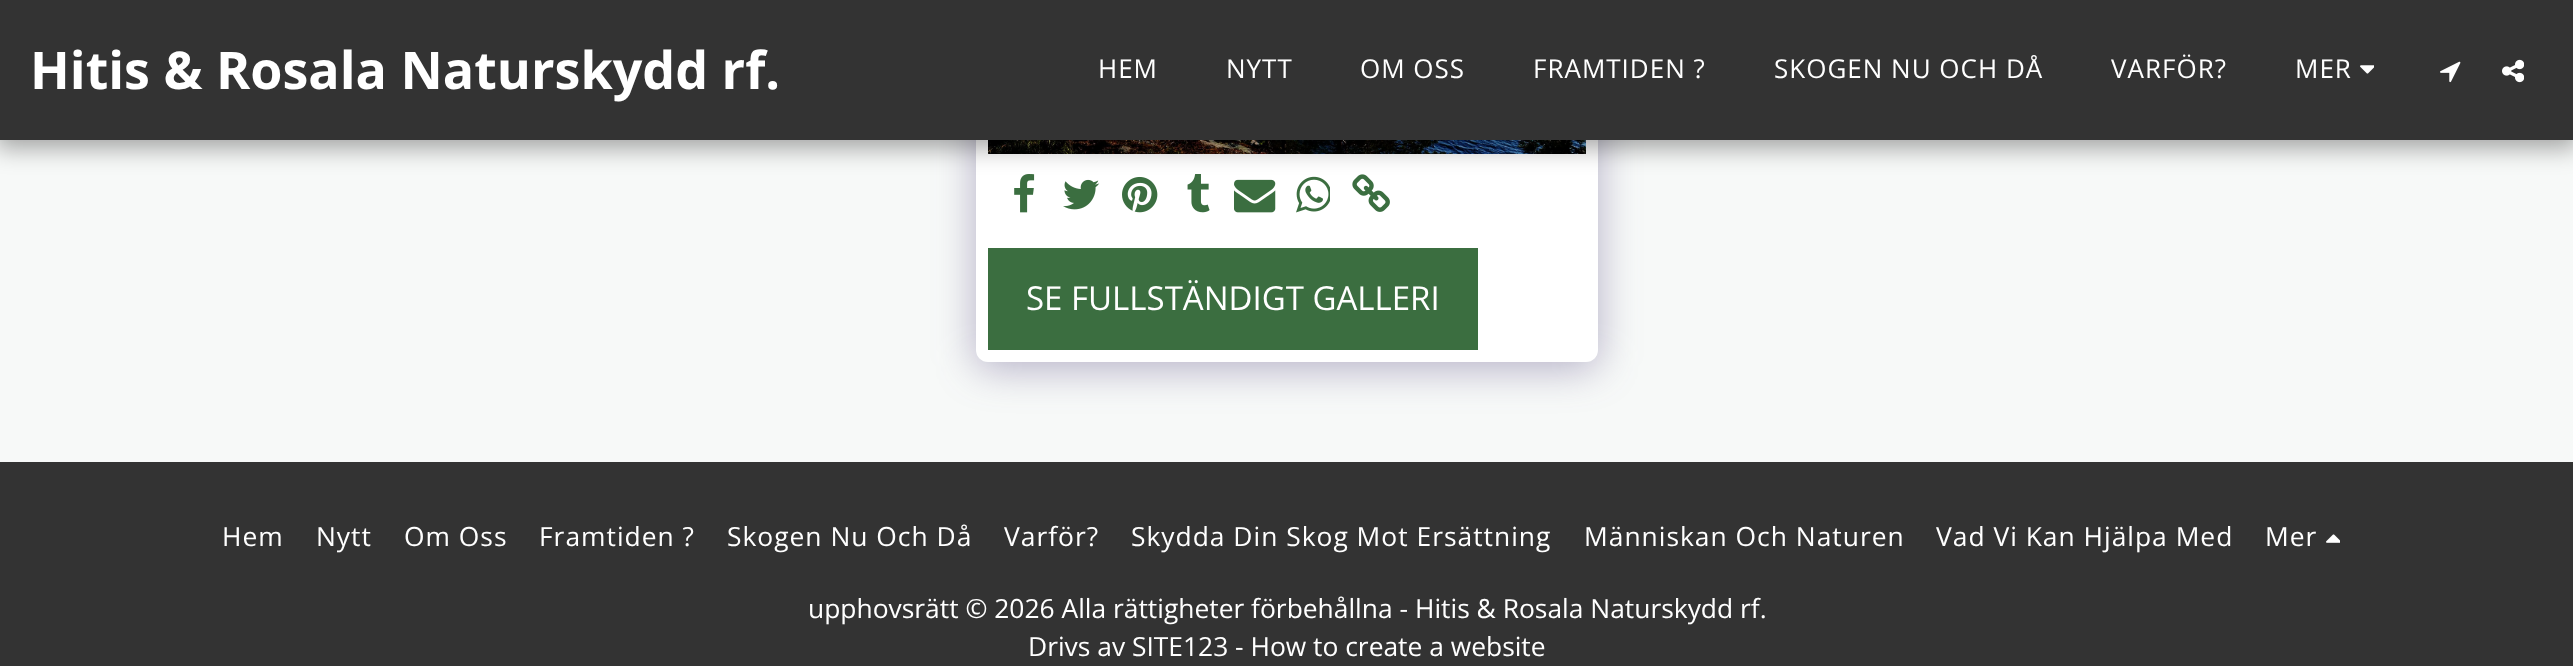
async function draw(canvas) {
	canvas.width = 2573;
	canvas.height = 666;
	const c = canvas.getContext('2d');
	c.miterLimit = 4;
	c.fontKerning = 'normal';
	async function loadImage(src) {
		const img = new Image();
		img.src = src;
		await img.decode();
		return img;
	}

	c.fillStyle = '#f7f9f8';
	c.fillRect(0, 0, 2573, 666);
	c.fillStyle = '#4d3f7a66';
	c.filter = 'blur(20px)';
	c.beginPath();
	c.roundRect(976, -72, 622, 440, 12);
	c.fill();
	c.filter = 'none';
	c.fillStyle = '#fff';
	c.beginPath();
	c.roundRect(976, -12, 622, 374, 12);
	c.fill();
	c.drawImage(await loadImage('img4.png'), 988, 140, 598, 14);
	c.drawImage(await loadImage('img5.png'), 1014, 174, 21, 39);
	c.drawImage(await loadImage('img6.png'), 1063, 179, 37, 31);
	c.drawImage(await loadImage('img7.png'), 1122, 176, 36, 37);
	c.drawImage(await loadImage('img8.png'), 1187, 174, 23, 39);
	c.drawImage(await loadImage('img9.png'), 1234, 179, 42, 34);
	c.drawImage(await loadImage('img10.png'), 1296, 176, 34, 37);
	c.drawImage(await loadImage('img11.png'), 1352, 174, 38, 38);
	c.fillStyle = '#00000059';
	c.filter = 'blur(12px)';
	c.beginPath();
	c.rect(-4, 0, 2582, 148);
	c.fill();
	c.filter = 'none';
	c.fillStyle = '#333';
	c.fillRect(0, 0, 2573, 140);
	c.font = 'bold 52px Open Sans';
	c.fillStyle = '#fff';
	c.fillText('Hitis & Rosala Naturskydd rf.', 30, 89);
	c.letterSpacing = '1px';
	c.font = '26px Open Sans';
	for (const [text, x, y] of [
		['HEM', 1098, 78],
		['NYTT', 1226, 78],
		['OM OSS', 1360, 78],
		['FRAMTIDEN ?', 1533, 78],
		['SKOGEN NU OCH DÅ', 1774, 78],
		['VARFÖR?', 2111, 78],
		['MER', 2295, 78],
	]) {
		c.fillText(text, x, y);
	}
	c.drawImage(await loadImage('img1.png'), 2360, 65, 14, 9);
	c.drawImage(await loadImage('img2.png'), 2440, 61, 21, 22);
	c.drawImage(await loadImage('img3.png'), 2502, 59, 22, 24);
	c.fillStyle = '#3b6e40';
	c.fillRect(988, 248, 490, 102);
	c.letterSpacing = '0px';
	c.font = '33px Open Sans';
	c.fillStyle = '#fff';
	c.fillText('SE FULLSTÄNDIGT GALLERI', 1026, 310);
	c.fillStyle = '#333';
	c.fillRect(0, 462, 2573, 204);
	c.letterSpacing = '1px';
	c.font = '26.4px Open Sans';
	c.fillStyle = '#fff';
	for (const [text, x, y] of [
		['Hem', 222, 546],
		['Nytt', 316, 546],
		['Om Oss', 404, 546],
		['Framtiden ?', 539, 546],
		['Skogen Nu Och Då', 727, 546],
		['Varför?', 1004, 546],
		['Skydda Din Skog Mot Ersättning', 1131, 546],
		['Människan Och Naturen', 1584, 546],
		['Vad Vi Kan Hjälpa Med', 1936, 546],
		['Mer', 2265, 546],
	]) {
		c.fillText(text, x, y);
	}
	c.drawImage(await loadImage('img12.png'), 2326, 534, 14, 9);
	c.letterSpacing = '0px';
	for (const [text, x, y] of [
		['upphovsrätt © 2026 Alla rättigheter förbehållna -', 808, 618],
		['Hitis & Rosala Naturskydd rf.', 1415, 618],
		['Drivs av SITE123 - How to create a website', 1028, 656],
	]) {
		c.fillText(text, x, y);
	}
}

draw(document.querySelector('canvas'));
